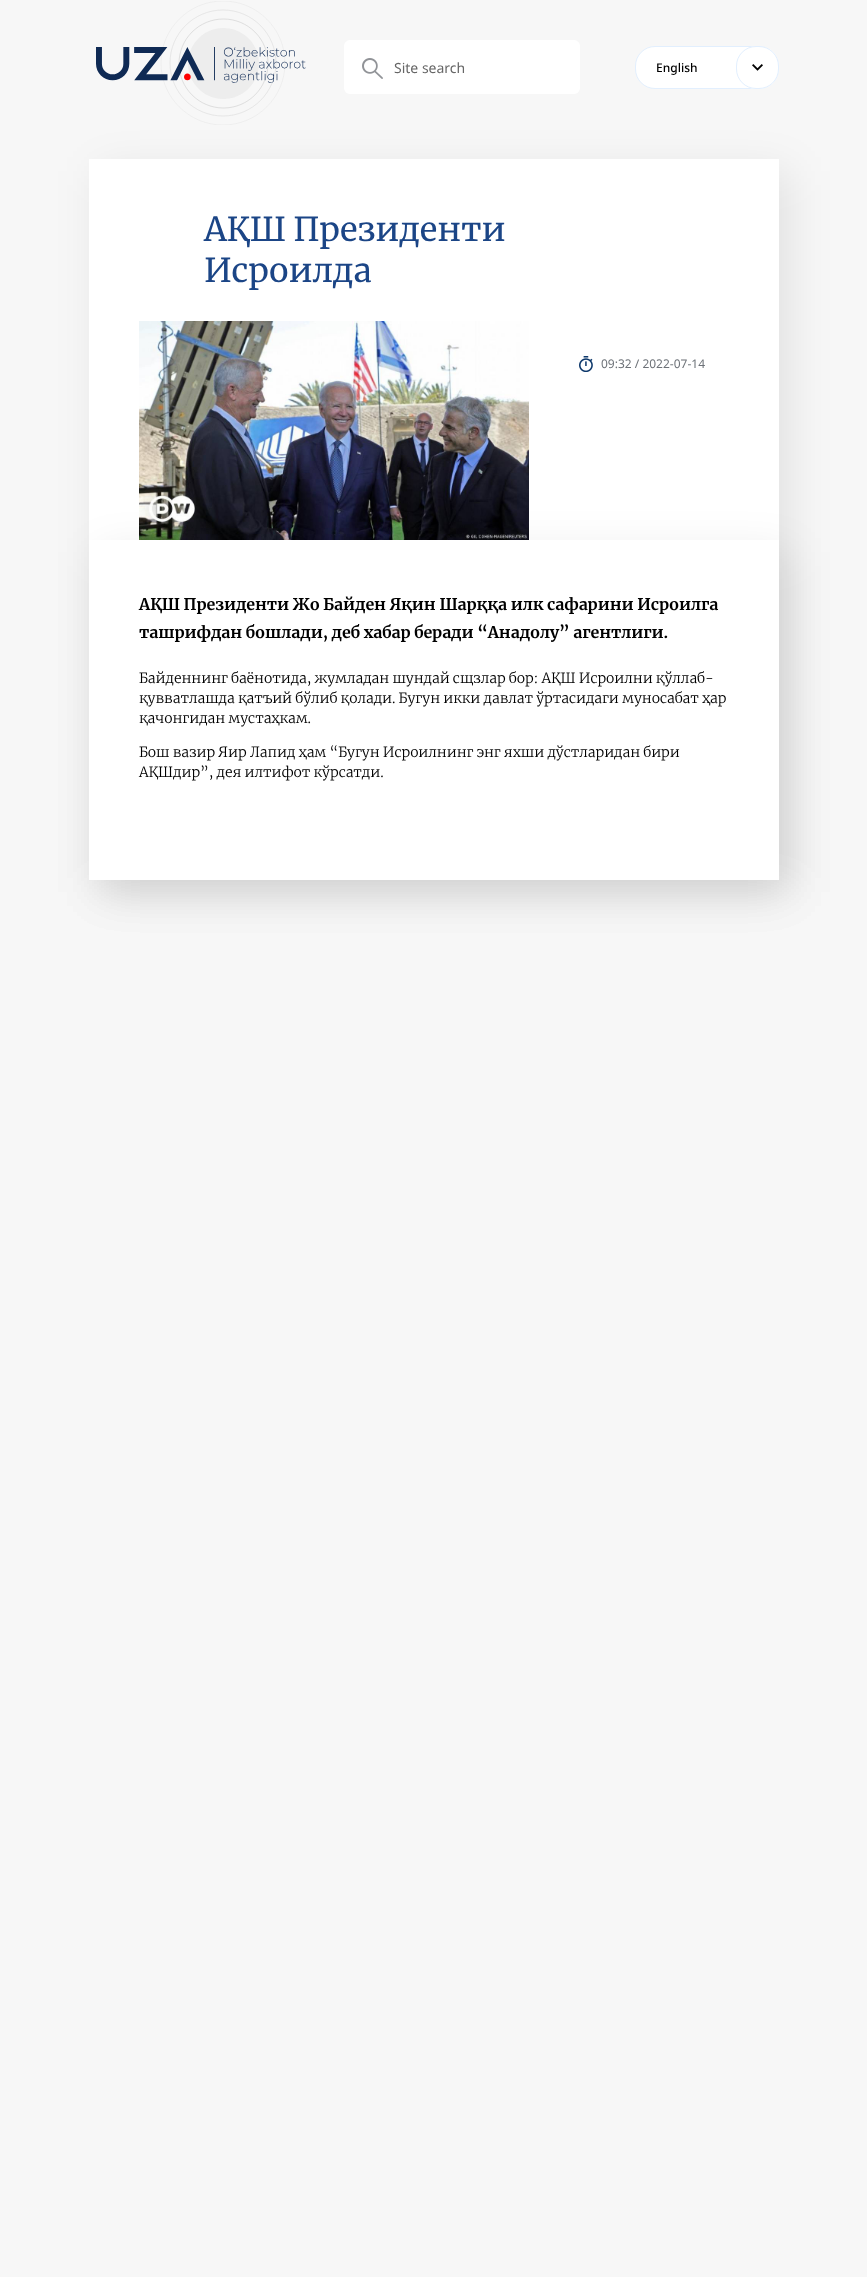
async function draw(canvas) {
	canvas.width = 867;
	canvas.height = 2277;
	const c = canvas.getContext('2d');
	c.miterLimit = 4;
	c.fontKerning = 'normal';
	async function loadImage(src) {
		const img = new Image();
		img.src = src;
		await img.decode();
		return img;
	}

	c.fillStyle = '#f7f7f7';
	c.fillRect(0, 0, 867, 2277);
	c.fillStyle = '#00000017';
	c.filter = 'blur(22px)';
	c.beginPath();
	c.rect(99, 171, 690, 721);
	c.fill();
	c.filter = 'none';
	c.drawImage(await loadImage('img1.png'), 96, 1, 210, 124);
	c.fillStyle = '#fff';
	c.beginPath();
	c.roundRect(344, 40, 236, 54, 6);
	c.fill();
	c.drawImage(await loadImage('img2.png'), 362, 58, 21, 21);
	c.font = '14px Noto Sans';
	c.fillStyle = '#666';
	c.fillText('Site search', 394, 73);
	c.fillStyle = '#fff';
	c.beginPath();
	c.roundRect(635.5, 46.5, 143, 42, 19.5);
	c.fill();
	c.strokeStyle = '#e2effe';
	c.stroke();
	c.font = '500 12px Noto Sans';
	c.fillStyle = '#000';
	c.fillText('English', 656, 72);
	c.fillStyle = '#fff';
	c.beginPath();
	c.roundRect(736, 46, 43, 43, 20);
	c.fill();
	c.drawImage(await loadImage('img3.png'), 752, 64, 11, 7);
	c.beginPath();
	c.roundRect(736.5, 46.5, 42, 42, 19.5);
	c.stroke();
	c.fillRect(89, 159, 690, 721);
	c.letterSpacing = '-0.25px';
	c.font = '33px Merriweather';
	c.fillStyle = '#1b4586';
	c.fillText('АҚШ Президенти', 204, 241);
	c.fillText('Исроилда', 204, 282);
	c.save();
	c.beginPath();
	c.moveTo(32, 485);
	c.lineTo(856, 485);
	c.lineTo(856, 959);
	c.lineTo(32, 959);
	c.closePath();
	c.moveTo(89, 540);
	c.lineTo(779, 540);
	c.lineTo(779, 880);
	c.lineTo(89, 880);
	c.closePath();
	c.clip('evenodd');
	c.fillStyle = '#00000017';
	c.filter = 'blur(22px)';
	c.beginPath();
	c.rect(99, 552, 690, 340);
	c.fill();
	c.filter = 'none';
	c.restore();
	c.drawImage(await loadImage('img4.png'), 139, 321, 390, 219);
	c.drawImage(await loadImage('img5.png'), 579, 356, 14, 16);
	c.letterSpacing = '0px';
	c.font = '12px Noto Sans';
	c.fillStyle = '#6d7278';
	c.fillText('09:32 / 2022-07-14', 601, 368);
	c.letterSpacing = '-0.1px';
	c.font = 'bold 16px Merriweather';
	c.fillStyle = '#000';
	c.fillText('АҚШ Президенти Жо Байден Яқин Шарққа илк сафарини Исроилга', 139, 610);
	c.fillText('ташрифдан бошлади, деб хабар беради “Анадолу” агентлиги.', 139, 638);
	c.font = '300 14px Merriweather';
	for (const [text, x, y] of [
		['Байденнинг баёнотида, жумладан шундай сщзлар бор: АҚШ Исроилни қўллаб-', 139, 683],
		['қувватлашда қатъий бўлиб қолади. Бугун икки давлат ўртасидаги муносабат ҳар', 139, 703],
		['қачонгидан мустаҳкам.', 139, 723],
		['Бош вазир Яир Лапид ҳам “Бугун Исроилнинг энг яхши дўстларидан бири', 139, 757],
		['АҚШдир”, дея илтифот кўрсатди.', 139, 777],
	]) {
		c.fillText(text, x, y);
	}
}

draw(document.querySelector('canvas'));
